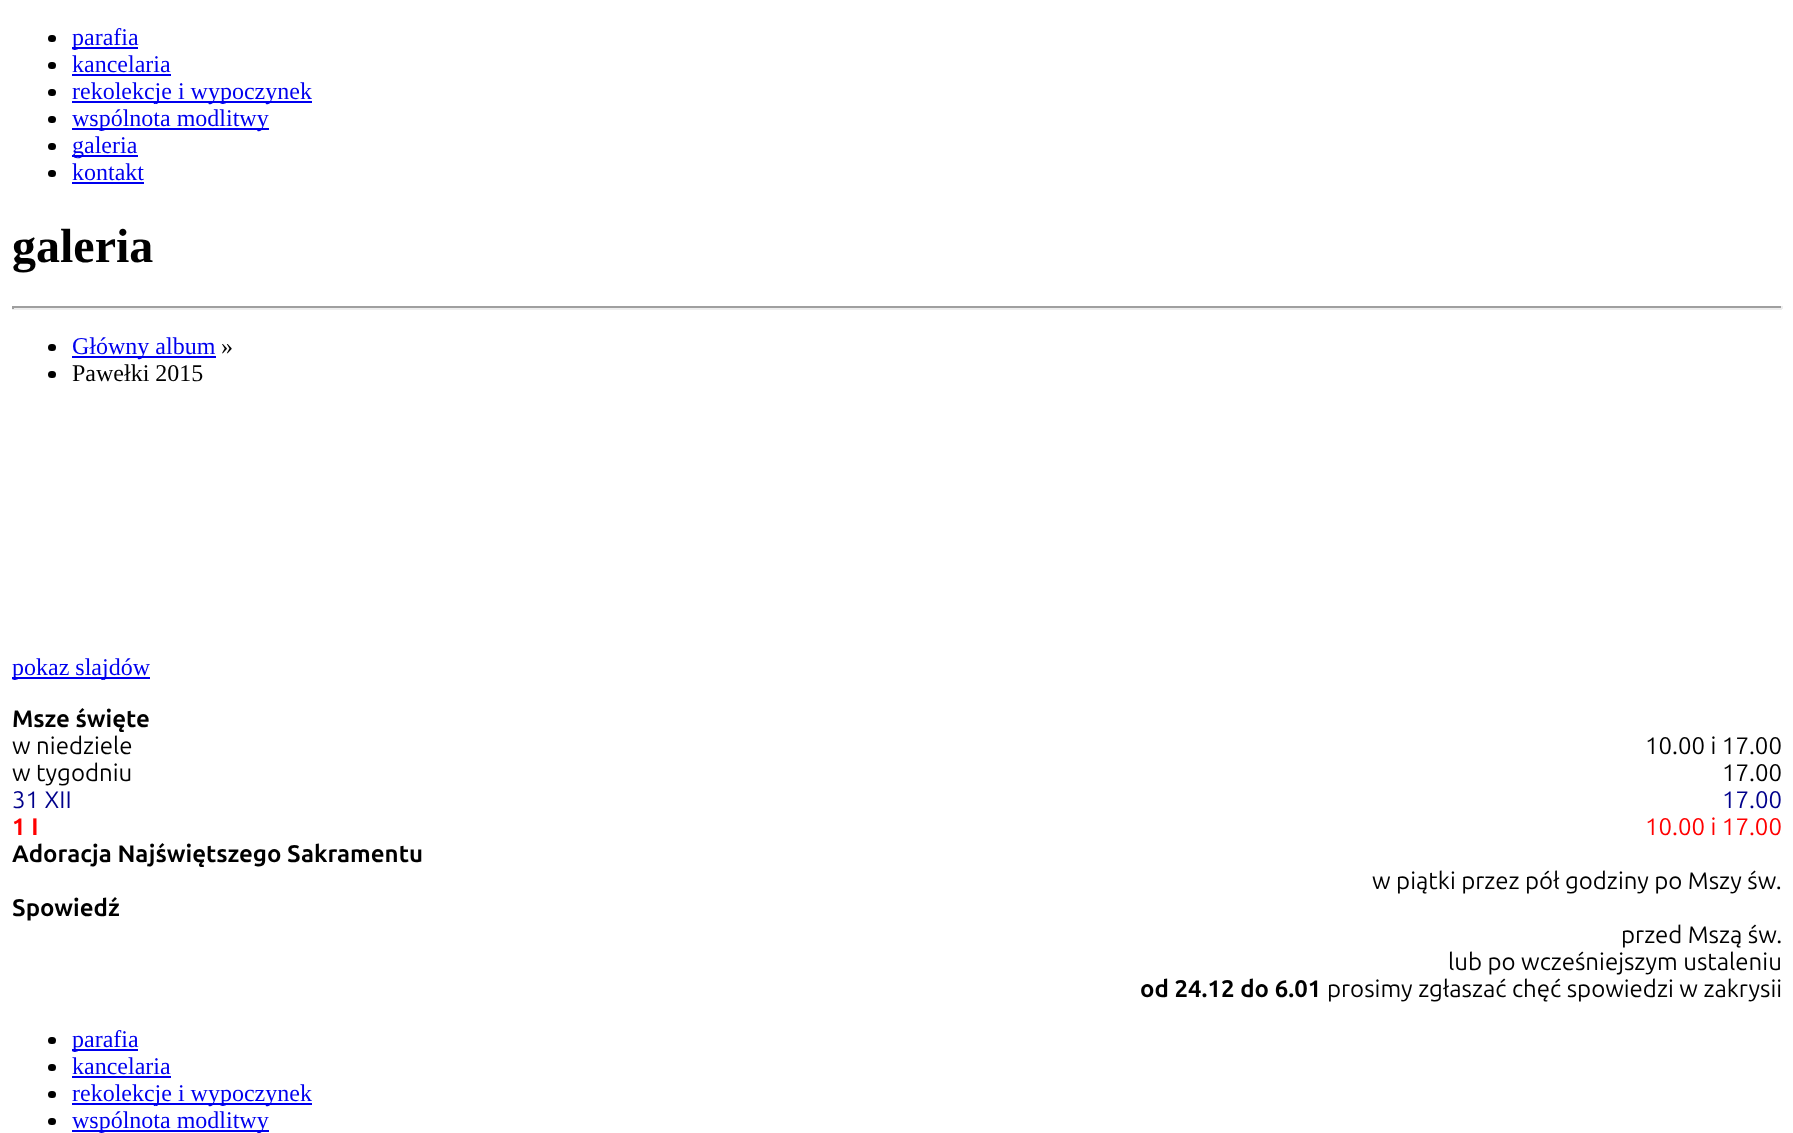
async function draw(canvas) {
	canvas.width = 1793;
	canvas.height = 1133;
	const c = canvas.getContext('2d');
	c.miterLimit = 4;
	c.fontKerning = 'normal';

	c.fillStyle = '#fff';
	c.fillRect(0, 0, 1793, 1133);
	c.fillStyle = '#000';
	c.beginPath();
	c.roundRect(48, 35, 8, 7, 3.5);
	c.fill();
	c.fillStyle = '#00e';
	c.fillRect(72, 47, 66, 2);
	c.font = '24px Liberation Serif';
	c.fillText('parafia', 72, 45);
	c.fillStyle = '#000';
	c.beginPath();
	c.roundRect(48, 62, 8, 7, 3.5);
	c.fill();
	c.fillStyle = '#00e';
	c.fillText('kancelaria', 72, 72);
	c.fillRect(72, 74, 99, 2);
	c.fillStyle = '#000';
	c.beginPath();
	c.roundRect(48, 89, 8, 7, 3.5);
	c.fill();
	c.fillStyle = '#00e';
	c.fillRect(72, 101, 240, 2);
	c.fillText('rekolekcje i wypoczynek', 72, 99);
	c.fillStyle = '#000';
	c.beginPath();
	c.roundRect(48, 116, 8, 7, 3.5);
	c.fill();
	c.fillStyle = '#00e';
	c.fillRect(72, 128, 197, 2);
	c.fillText('wspólnota modlitwy', 72, 126);
	c.fillStyle = '#000';
	c.beginPath();
	c.roundRect(48, 143, 8, 7, 3.5);
	c.fill();
	c.fillStyle = '#00e';
	c.fillRect(72, 155, 66, 2);
	c.fillText('galeria', 72, 153);
	c.fillStyle = '#000';
	c.beginPath();
	c.roundRect(48, 170, 8, 7, 3.5);
	c.fill();
	c.fillStyle = '#00e';
	c.fillText('kontakt', 72, 180);
	c.fillRect(72, 182, 72, 2);
	c.font = 'bold 48px Liberation Serif';
	c.fillStyle = '#000';
	c.fillText('galeria', 12, 262);
	for (const [x, y, w, h, color] of [
		[12, 306, 1770, 2, '#9f9f9f'],
		[1781, 306, 2, 3, '#eee'],
		[12, 308, 1770, 2, '#eee'],
		[12, 306, 2, 3, '#9f9f9f'],
	]) {
		c.fillStyle = color;
		c.fillRect(x, y, w, h);
	}
	c.fillStyle = '#000';
	c.beginPath();
	c.roundRect(48, 344, 8, 7, 3.5);
	c.fill();
	c.fillStyle = '#00e';
	c.fillRect(72, 356, 144, 2);
	c.font = '24px Liberation Serif';
	c.fillText('Główny album', 72, 354);
	c.fillStyle = '#000';
	c.fillText('»', 221, 354);
	c.beginPath();
	c.roundRect(48, 371, 8, 7, 3.5);
	c.fill();
	c.fillText('Pawełki 2015', 72, 381);
	c.fillStyle = '#00e';
	c.fillRect(12, 677, 138, 2);
	c.fillText('pokaz slajdów', 12, 675);
	c.font = 'bold 24px Ubuntu';
	c.fillStyle = '#000';
	c.fillText('Msze święte', 12, 727);
	c.font = '24px Ubuntu';
	for (const [text, x, y] of [
		['w niedziele', 12, 754],
		['10.00 i 17.00', 1645, 754],
		['w tygodniu', 12, 781],
		['17.00', 1722, 781],
	]) {
		c.fillText(text, x, y);
	}
	c.fillStyle = '#00008b';
	c.fillText('31 XII', 12, 808);
	c.fillText('17.00', 1722, 808);
	c.font = 'bold 24px Ubuntu';
	c.fillStyle = '#f00';
	c.fillText('1 I', 12, 835);
	c.font = '24px Ubuntu';
	c.fillText('10.00 i 17.00', 1645, 835);
	c.font = 'bold 24px Ubuntu';
	c.fillStyle = '#000';
	c.fillText('Adoracja Najświętszego Sakramentu', 12, 862);
	c.font = '24px Ubuntu';
	c.fillText('w piątki przez pół godziny po Mszy św.', 1372, 889);
	c.font = 'bold 24px Ubuntu';
	c.fillText('Spowiedź', 12, 916);
	c.font = '24px Ubuntu';
	c.fillText('przed Mszą św.', 1621, 943);
	c.fillText('lub po wcześniejszym ustaleniu', 1448, 970);
	c.font = 'bold 24px Ubuntu';
	c.fillText('od 24.12 do 6.01', 1140, 997);
	c.font = '24px Ubuntu';
	c.fillText('prosimy zgłaszać chęć spowiedzi w zakrysii', 1327, 997);
	c.beginPath();
	c.roundRect(48, 1037, 8, 7, 3.5);
	c.fill();
	c.fillStyle = '#00e';
	c.fillRect(72, 1049, 66, 2);
	c.font = '24px Liberation Serif';
	c.fillText('parafia', 72, 1047);
	c.fillStyle = '#000';
	c.beginPath();
	c.roundRect(48, 1064, 8, 7, 3.5);
	c.fill();
	c.fillStyle = '#00e';
	c.fillText('kancelaria', 72, 1074);
	c.fillRect(72, 1076, 99, 2);
	c.fillStyle = '#000';
	c.beginPath();
	c.roundRect(48, 1091, 8, 7, 3.5);
	c.fill();
	c.fillStyle = '#00e';
	c.fillRect(72, 1103, 240, 2);
	c.fillText('rekolekcje i wypoczynek', 72, 1101);
	c.fillStyle = '#000';
	c.beginPath();
	c.roundRect(48, 1118, 8, 7, 3.5);
	c.fill();
	c.fillStyle = '#00e';
	c.fillRect(72, 1130, 197, 2);
	c.fillText('wspólnota modlitwy', 72, 1128);
}

draw(document.querySelector('canvas'));
